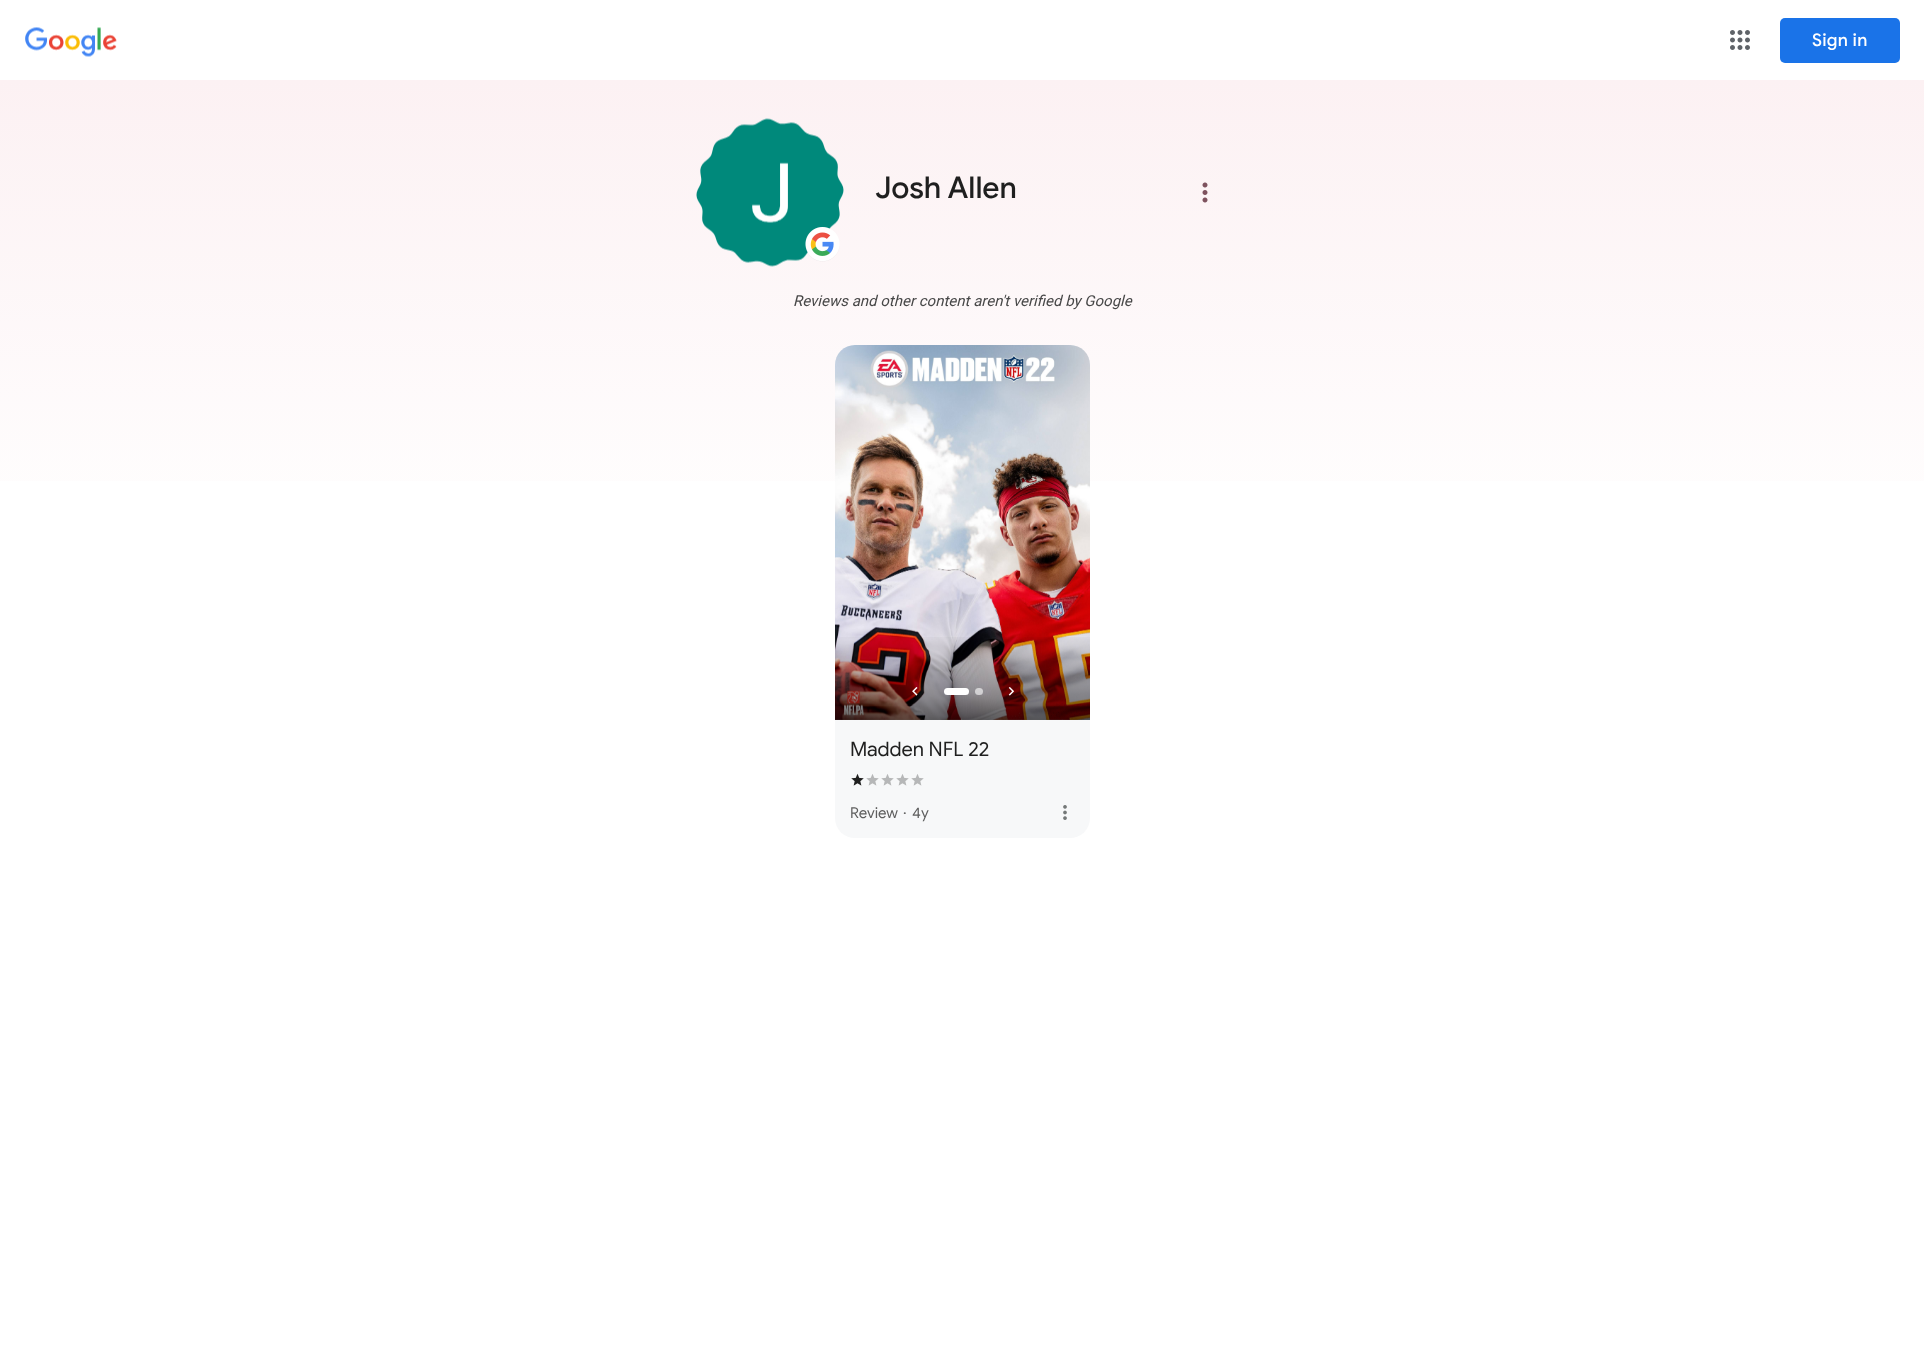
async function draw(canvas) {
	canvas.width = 1924;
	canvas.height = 1348;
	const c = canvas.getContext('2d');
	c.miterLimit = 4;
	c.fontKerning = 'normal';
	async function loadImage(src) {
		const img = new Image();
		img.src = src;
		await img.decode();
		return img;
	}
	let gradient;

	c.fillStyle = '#fff';
	c.fillRect(0, 0, 1924, 1348);
	c.drawImage(await loadImage('img1.png'), 25, 27, 92, 30);
	c.drawImage(await loadImage('img2.png'), 1730, 30, 20, 20);
	c.fillStyle = '#1a73e8';
	c.beginPath();
	c.roundRect(1780, 18, 120, 45, 5);
	c.fill();
	c.letterSpacing = '0.25px';
	c.font = '500 17.5px Google Sans';
	c.fillStyle = '#fff';
	c.fillText('Sign in', 1812, 46);
	gradient = c.createLinearGradient(963, 80, 963, 568);
	gradient.addColorStop(0, '#fcf1f3');
	gradient.addColorStop(1, '#fff');
	c.fillStyle = gradient;
	c.fillRect(0, 80, 1924, 401);
	c.drawImage(await loadImage('img3.png'), 696, 118, 148, 149);
	c.drawImage(await loadImage('img4.png'), 805, 227, 35, 35);
	c.letterSpacing = '0px';
	c.font = '500 30px Google Sans';
	c.fillStyle = '#1f1f1f';
	c.fillText('Josh Allen', 875, 198);
	c.drawImage(await loadImage('img5.png'), 1202, 182, 6, 21);
	c.font = 'italic 15px Roboto';
	c.fillStyle = '#474747';
	c.fillText('Reviews and other content aren\'t verified by Google', 793, 306);
	c.fillStyle = '#f7f8f9';
	c.beginPath();
	c.roundRect(835, 345, 255, 493, 20);
	c.fill();
	c.drawImage(await loadImage('img6.png'), 835, 345, 255, 375);
	gradient = c.createLinearGradient(963, 633, 963, 720);
	gradient.addColorStop(0, '#00000000');
	gradient.addColorStop(0.75, '#00000066');
	gradient.addColorStop(1, '#00000099');
	c.fillStyle = gradient;
	c.fillRect(835, 637, 255, 83);
	c.drawImage(await loadImage('img7.png'), 912, 687, 6, 9);
	c.fillStyle = '#fff';
	c.beginPath();
	c.roundRect(944, 688, 25, 7, 3.5);
	c.fill();
	c.fillStyle = '#ffffff99';
	c.beginPath();
	c.roundRect(975, 688, 8, 7, 3.5);
	c.fill();
	c.drawImage(await loadImage('img8.png'), 1008, 687, 7, 9);
	c.font = '20px Google Sans';
	c.fillStyle = '#1f1f1f';
	c.fillText('Madden NFL 22', 850, 756);
	c.drawImage(await loadImage('img9.png'), 851, 773, 13, 13);
	c.drawImage(await loadImage('img10.png'), 866, 774, 13, 12);
	c.drawImage(await loadImage('img10.png'), 881, 774, 13, 12);
	c.drawImage(await loadImage('img10.png'), 896, 774, 13, 12);
	c.drawImage(await loadImage('img10.png'), 911, 774, 13, 12);
	c.font = '15px Google Sans';
	c.fillStyle = '#5e5e5e';
	for (const [text, x, y] of [
		['Review', 850, 818],
		['·', 903, 818],
		['4y', 912, 818],
	]) {
		c.fillText(text, x, y);
	}
	c.drawImage(await loadImage('img11.png'), 1063, 805, 4, 15);
}

draw(document.querySelector('canvas'));
